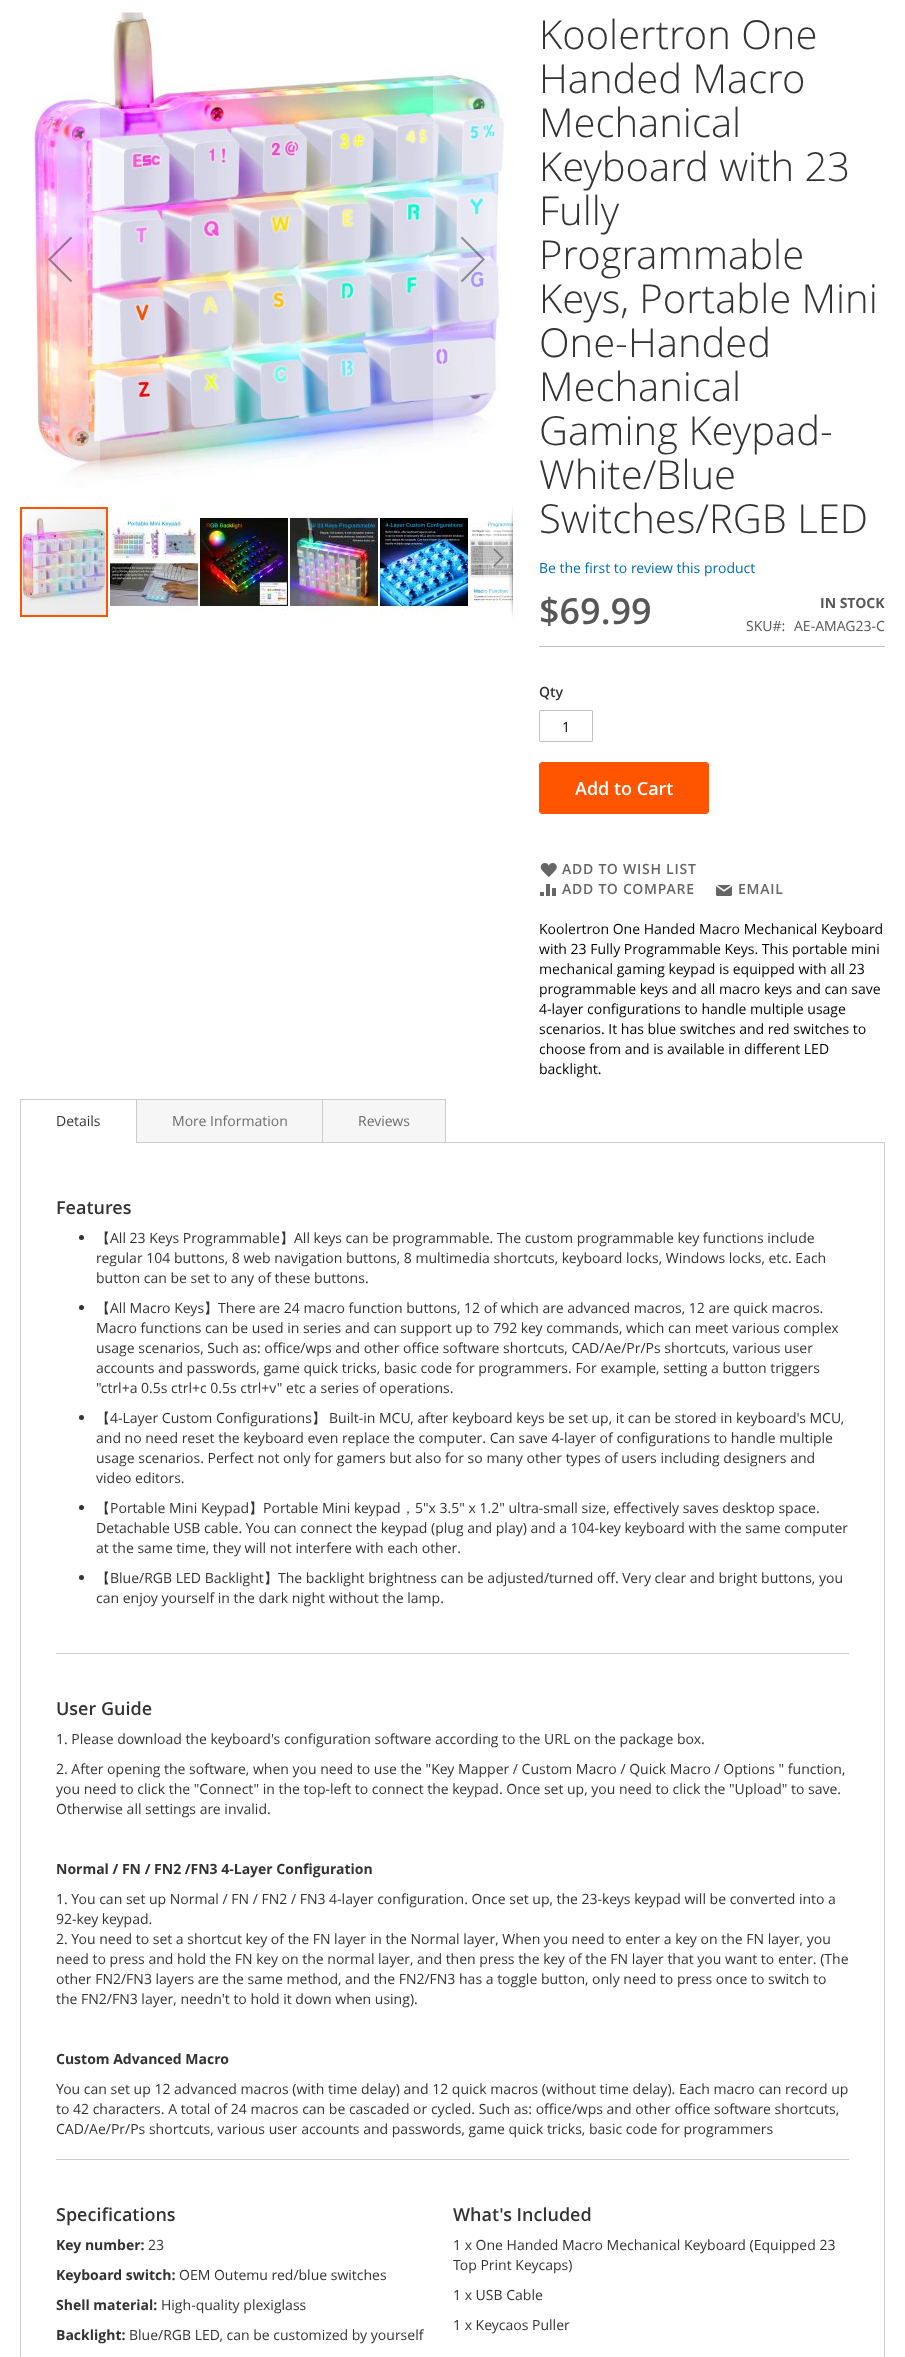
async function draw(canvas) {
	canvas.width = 905;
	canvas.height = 2357;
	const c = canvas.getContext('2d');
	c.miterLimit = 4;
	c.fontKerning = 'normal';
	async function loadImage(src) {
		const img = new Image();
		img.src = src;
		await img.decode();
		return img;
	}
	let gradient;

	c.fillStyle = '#fff';
	c.fillRect(0, 0, 905, 2357);
	c.drawImage(await loadImage('img1.png'), 31, 12, 474, 476);
	c.fillStyle = '#ffffff4d';
	c.fillRect(32, 93, 68, 391);
	c.drawImage(await loadImage('img2.png'), 48, 236, 25, 47);
	c.fillRect(433, 74, 71, 364);
	c.drawImage(await loadImage('img3.png'), 460, 236, 25, 47);
	c.drawImage(await loadImage('img8.png'), 470, 507, 43, 110);
	gradient = c.createRadialGradient(513, 49.3, 0, 513, 49.3, 5);
	gradient.addColorStop(0, '#00000066');
	gradient.addColorStop(1, '#00000000');
	c.fillStyle = gradient;
	c.beginPath();
	c.rect(508, 505, 5, 114);
	c.save();
	c.clip();
	c.scale(1, 57 / 5);
	c.fillRect(0, 0, 905, 207);
	c.restore();
	gradient = c.createLinearGradient(513, 505, 513, 619);
	gradient.addColorStop(0, '#00000000');
	gradient.addColorStop(0.25, '#00000033');
	gradient.addColorStop(0.75, '#0000004d');
	gradient.addColorStop(1, '#00000000');
	c.fillStyle = gradient;
	c.fillRect(512, 505, 1, 114);
	c.drawImage(await loadImage('img9.png'), 22, 509, 84, 106);
	c.strokeStyle = '#ff5501';
	c.lineWidth = 2;
	c.strokeRect(21, 508, 86, 108);
	c.drawImage(await loadImage('img4.png'), 110, 507, 88, 110);
	c.drawImage(await loadImage('img5.png'), 200, 507, 88, 110);
	c.drawImage(await loadImage('img6.png'), 290, 507, 88, 110);
	c.drawImage(await loadImage('img7.png'), 380, 507, 88, 110);
	c.fillStyle = '#ffffff4d';
	c.fillRect(483, 508, 30, 109);
	c.drawImage(await loadImage('img10.png'), 493, 548, 11, 19);
	c.font = '300 40px Open Sans';
	c.fillStyle = '#333';
	for (const [text, x, y] of [
		['Koolertron One', 539, 49],
		['Handed Macro', 539, 93],
		['Mechanical', 539, 137],
		['Keyboard with 23', 539, 181],
		['Fully', 539, 225],
		['Programmable', 539, 269],
		['Keys, Portable Mini', 539, 313],
		['One-Handed', 539, 357],
		['Mechanical', 539, 401],
		['Gaming Keypad-', 539, 445],
		['White/Blue', 539, 489],
		['Switches/RGB LED', 539, 533],
	]) {
		c.fillText(text, x, y);
	}
	c.font = '14px Open Sans';
	c.fillStyle = '#006bb4';
	c.fillText('Be the first to review this product', 539, 573);
	c.fillStyle = '#c1c1c1';
	c.fillRect(539, 646, 346, 1);
	c.font = '600 36px Open Sans';
	c.fillStyle = '#575757';
	c.fillText('$69.99', 539, 624);
	c.font = 'bold 14px Open Sans';
	c.fillText('IN STOCK', 820, 608);
	c.font = '14px Open Sans';
	c.fillText('SKU#:', 746, 631);
	c.fillText('AE-AMAG23-C', 794, 631);
	c.font = '600 14px Open Sans';
	c.fillStyle = '#333';
	c.fillText('Qty', 539, 697);
	c.beginPath();
	c.roundRect(539.5, 710.5, 53, 31, 0.5);
	c.strokeStyle = '#c2c2c2';
	c.lineWidth = 1;
	c.stroke();
	c.font = '14px Open Sans';
	c.fillStyle = '#000';
	c.fillText('1', 562, 732);
	c.fillStyle = '#ff5501';
	c.beginPath();
	c.roundRect(539.5, 762.5, 169, 51, 2.5);
	c.fill();
	c.strokeStyle = '#ff5601';
	c.stroke();
	c.font = '600 18px Open Sans';
	c.fillStyle = '#fff';
	c.fillText('Add to Cart', 575, 795);
	c.drawImage(await loadImage('img11.png'), 540, 863, 17, 14);
	c.letterSpacing = '0.75px';
	c.font = '600 14px Open Sans';
	c.fillStyle = '#666';
	c.fillText('ADD TO WISH LIST', 562, 874);
	c.drawImage(await loadImage('img12.png'), 540, 884, 16, 12);
	c.fillText('ADD TO COMPARE', 562, 894);
	c.drawImage(await loadImage('img13.png'), 716, 885, 16, 11);
	c.fillText('EMAIL', 738, 894);
	c.letterSpacing = '0px';
	c.font = '14px Open Sans';
	c.fillStyle = '#000';
	for (const [text, x, y] of [
		['Koolertron One Handed Macro Mechanical Keyboard', 539, 934],
		['with 23 Fully Programmable Keys. This portable mini', 539, 954],
		['mechanical gaming keypad is equipped with all 23', 539, 974],
		['programmable keys and all macro keys and can save', 539, 994],
		['4-layer configurations to handle multiple usage', 539, 1014],
		['scenarios. It has blue switches and red switches to', 539, 1034],
		['choose from and is available in different LED', 539, 1054],
		['backlight.', 539, 1074],
	]) {
		c.fillText(text, x, y);
	}
	c.strokeStyle = '#ccc';
	c.strokeRect(20.5, 1142.5, 864, 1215);
	for (const [x, y, w, h, color] of [
		[21, 1142, 115, 1, '#fff'],
		[20, 1099, 426, 1, '#ccc'],
		[20, 1099, 1, 44, '#ccc'],
	]) {
		c.fillStyle = color;
		c.fillRect(x, y, w, h);
	}
	c.fillStyle = '#333';
	c.fillText('Details', 56, 1126);
	c.fillStyle = '#f6f6f6';
	c.fillRect(137, 1100, 185, 42);
	c.fillStyle = '#ccc';
	c.fillRect(136, 1099, 1, 43);
	c.fillStyle = '#6d6d6d';
	c.fillText('More Information', 172, 1126);
	for (const [x, y, w, h, color] of [
		[323, 1100, 122, 42, '#f6f6f6'],
		[445, 1099, 1, 43, '#ccc'],
		[322, 1099, 1, 43, '#ccc'],
	]) {
		c.fillStyle = color;
		c.fillRect(x, y, w, h);
	}
	c.fillStyle = '#6d6d6d';
	c.fillText('Reviews', 358, 1126);
	c.font = '600 18px Open Sans';
	c.fillStyle = '#333';
	c.fillText('Features', 56, 1214);
	c.beginPath();
	c.arc(81.5, 1237.5, 2.5, 0, 2 * Math.PI);
	c.fill();
	c.font = '500 14px WenQuanYi Zen Hei';
	c.fillText('【', 96, 1243);
	c.font = '14px Open Sans';
	c.fillText('All 23 Keys Programmable', 110, 1243);
	c.font = '500 14px WenQuanYi Zen Hei';
	c.fillText('】', 280, 1243);
	c.font = '14px Open Sans';
	for (const [text, x, y] of [
		['All keys can be programmable. The custom programmable key functions include', 294, 1243],
		['regular 104 buttons, 8 web navigation buttons, 8 multimedia shortcuts, keyboard locks, Windows locks, etc. Each', 96, 1263],
		['button can be set to any of these buttons.', 96, 1283],
	]) {
		c.fillText(text, x, y);
	}
	c.beginPath();
	c.arc(81.5, 1307.5, 2.5, 0, 2 * Math.PI);
	c.fill();
	c.font = '500 14px WenQuanYi Zen Hei';
	c.fillText('【', 96, 1313);
	c.font = '14px Open Sans';
	c.fillText('All Macro Keys', 110, 1313);
	c.font = '500 14px WenQuanYi Zen Hei';
	c.fillText('】', 204, 1313);
	c.font = '14px Open Sans';
	for (const [text, x, y] of [
		['There are 24 macro function buttons, 12 of which are advanced macros, 12 are quick macros.', 218, 1313],
		['Macro functions can be used in series and can support up to 792 key commands, which can meet various complex', 96, 1333],
		['usage scenarios, Such as: office/wps and other office software shortcuts, CAD/Ae/Pr/Ps shortcuts, various user', 96, 1353],
		['accounts and passwords, game quick tricks, basic code for programmers. For example, setting a button triggers', 96, 1373],
		['"ctrl+a 0.5s ctrl+c 0.5s ctrl+v" etc a series of operations.', 96, 1393],
	]) {
		c.fillText(text, x, y);
	}
	c.beginPath();
	c.arc(81.5, 1417.5, 2.5, 0, 2 * Math.PI);
	c.fill();
	c.font = '500 14px WenQuanYi Zen Hei';
	c.fillText('【', 96, 1423);
	c.font = '14px Open Sans';
	c.fillText('4-Layer Custom Configurations', 110, 1423);
	c.font = '500 14px WenQuanYi Zen Hei';
	c.fillText('】', 312, 1423);
	c.font = '14px Open Sans';
	for (const [text, x, y] of [
		['Built-in MCU, after keyboard keys be set up, it can be stored in keyboard\'s MCU,', 329, 1423],
		['and no need reset the keyboard even replace the computer. Can save 4-layer of configurations to handle multiple', 96, 1443],
		['usage scenarios. Perfect not only for gamers but also for so many other types of users including designers and', 96, 1463],
		['video editors.', 96, 1483],
	]) {
		c.fillText(text, x, y);
	}
	c.beginPath();
	c.arc(81.5, 1507.5, 2.5, 0, 2 * Math.PI);
	c.fill();
	c.font = '500 14px WenQuanYi Zen Hei';
	c.fillText('【', 96, 1513);
	c.font = '14px Open Sans';
	c.fillText('Portable Mini Keypad', 110, 1513);
	c.font = '500 14px WenQuanYi Zen Hei';
	c.fillText('】', 249, 1513);
	c.font = '14px Open Sans';
	c.fillText('Portable Mini keypad', 263, 1513);
	c.fillText('5"x 3.5" x 1.2" ultra-small size, effectively saves desktop space.', 415, 1513);
	c.font = '500 14px WenQuanYi Zen Hei';
	c.fillText('，', 401, 1513);
	c.font = '14px Open Sans';
	c.fillText('Detachable USB cable. You can connect the keypad (plug and play) and a 104-key keyboard with the same computer', 96, 1533);
	c.fillText('at the same time, they will not interfere with each other.', 96, 1553);
	c.beginPath();
	c.arc(81.5, 1577.5, 2.5, 0, 2 * Math.PI);
	c.fill();
	c.font = '500 14px WenQuanYi Zen Hei';
	c.fillText('【', 96, 1583);
	c.font = '14px Open Sans';
	c.fillText('Blue/RGB LED Backlight', 110, 1583);
	c.font = '500 14px WenQuanYi Zen Hei';
	c.fillText('】', 264, 1583);
	c.font = '14px Open Sans';
	c.fillText('The backlight brightness can be adjusted/turned off. Very clear and bright buttons, you', 278, 1583);
	c.fillText('can enjoy yourself in the dark night without the lamp.', 96, 1603);
	c.fillStyle = '#cecece';
	c.fillRect(56, 1653, 793, 1);
	c.font = '600 18px Open Sans';
	c.fillStyle = '#333';
	c.fillText('User Guide', 56, 1715);
	c.font = '14px Open Sans';
	for (const [text, x, y] of [
		['1. Please download the keyboard\'s configuration software according to the URL on the package box.', 56, 1744],
		['2. After opening the software, when you need to use the "Key Mapper / Custom Macro / Quick Macro / Options " function,', 56, 1774],
		['you need to click the "Connect" in the top-left to connect the keypad. Once set up, you need to click the "Upload" to save.', 56, 1794],
		['Otherwise all settings are invalid.', 56, 1814],
	]) {
		c.fillText(text, x, y);
	}
	c.font = 'bold 14px Open Sans';
	c.fillText('Normal / FN / FN2 /FN3 4-Layer Configuration', 56, 1874);
	c.font = '14px Open Sans';
	for (const [text, x, y] of [
		['1. You can set up Normal / FN / FN2 / FN3 4-layer configuration. Once set up, the 23-keys keypad will be converted into a', 56, 1904],
		['92-key keypad.', 56, 1924],
		['2. You need to set a shortcut key of the FN layer in the Normal layer, When you need to enter a key on the FN layer, you', 56, 1944],
		['need to press and hold the FN key on the normal layer, and then press the key of the FN layer that you want to enter. (The', 56, 1964],
		['other FN2/FN3 layers are the same method, and the FN2/FN3 has a toggle button, only need to press once to switch to', 56, 1984],
		['the FN2/FN3 layer, needn\'t to hold it down when using).', 56, 2004],
	]) {
		c.fillText(text, x, y);
	}
	c.font = 'bold 14px Open Sans';
	c.fillText('Custom Advanced Macro', 56, 2064);
	c.font = '14px Open Sans';
	for (const [text, x, y] of [
		['You can set up 12 advanced macros (with time delay) and 12 quick macros (without time delay). Each macro can record up', 56, 2094],
		['to 42 characters. A total of 24 macros can be cascaded or cycled. Such as: office/wps and other office software shortcuts,', 56, 2114],
		['CAD/Ae/Pr/Ps shortcuts, various user accounts and passwords, game quick tricks, basic code for programmers', 56, 2134],
	]) {
		c.fillText(text, x, y);
	}
	c.fillStyle = '#cecece';
	c.fillRect(56, 2159, 793, 1);
	c.font = '600 18px Open Sans';
	c.fillStyle = '#333';
	c.fillText('Specifications', 56, 2221);
	c.font = 'bold 14px Open Sans';
	c.fillText('Key number:', 56, 2250);
	c.font = '14px Open Sans';
	c.fillText('23', 148, 2250);
	c.font = 'bold 14px Open Sans';
	c.fillText('Keyboard switch:', 56, 2280);
	c.font = '14px Open Sans';
	c.fillText('OEM Outemu red/blue switches', 179, 2280);
	c.font = 'bold 14px Open Sans';
	c.fillText('Shell material:', 56, 2310);
	c.font = '14px Open Sans';
	c.fillText('High-quality plexiglass', 161, 2310);
	c.font = 'bold 14px Open Sans';
	c.fillText('Backlight:', 56, 2340);
	c.font = '14px Open Sans';
	c.fillText('Blue/RGB LED, can be customized by yourself', 129, 2340);
	c.font = '600 18px Open Sans';
	c.fillText('What\'s Included', 453, 2221);
	c.font = '14px Open Sans';
	for (const [text, x, y] of [
		['1 x One Handed Macro Mechanical Keyboard (Equipped 23', 453, 2250],
		['Top Print Keycaps)', 453, 2270],
		['1 x USB Cable', 453, 2300],
		['1 x Keycaos Puller', 453, 2330],
	]) {
		c.fillText(text, x, y);
	}
}

draw(document.querySelector('canvas'));
